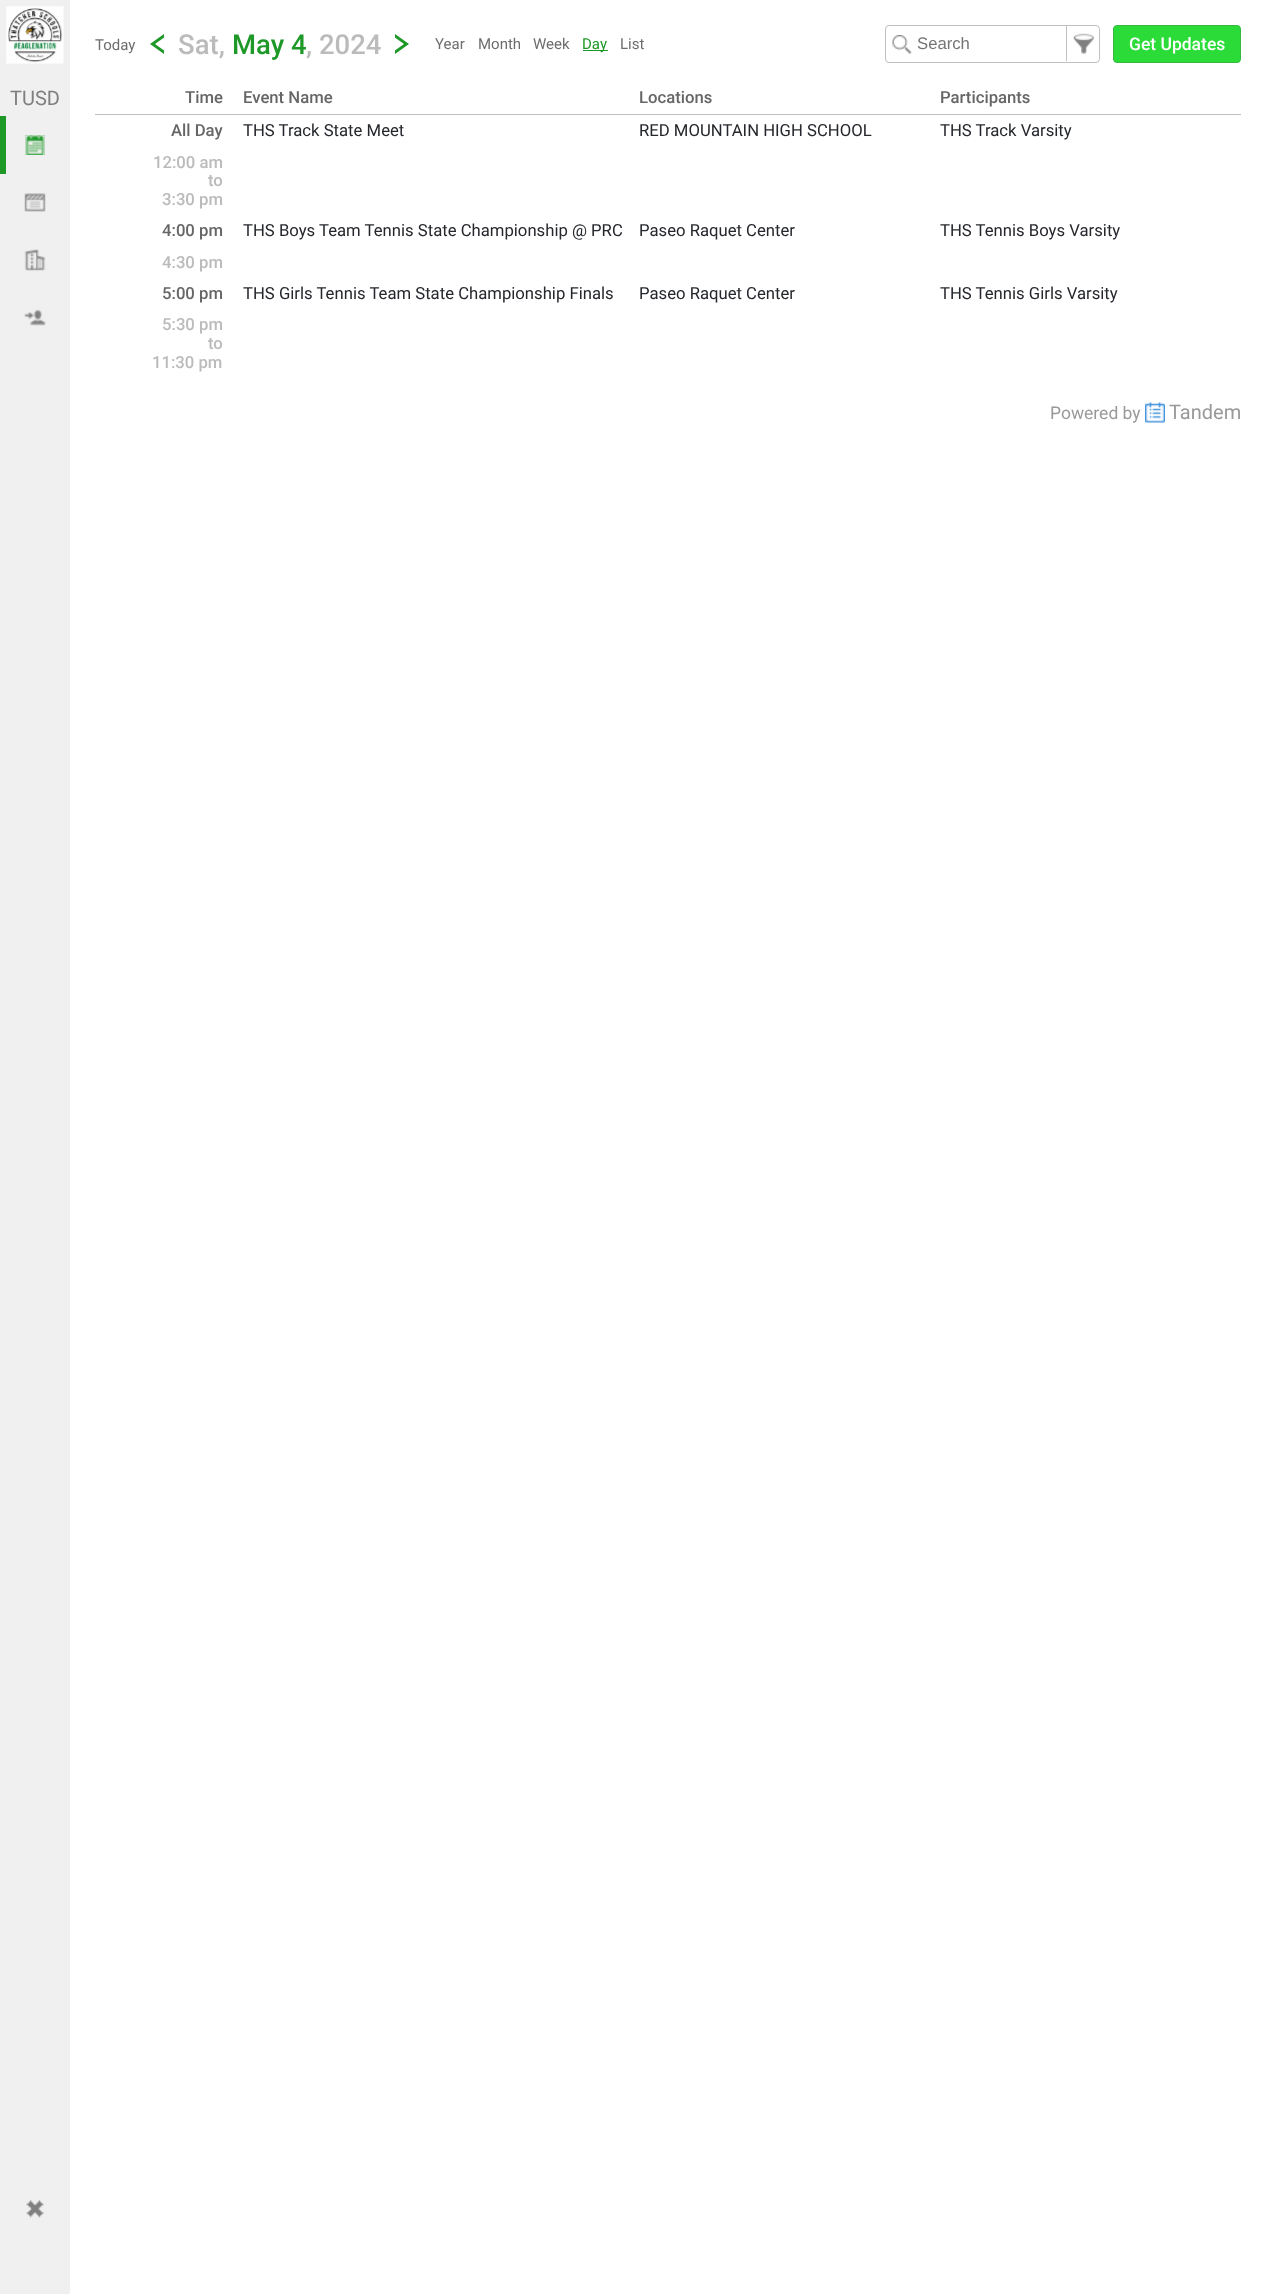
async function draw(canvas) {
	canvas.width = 1266;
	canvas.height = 2294;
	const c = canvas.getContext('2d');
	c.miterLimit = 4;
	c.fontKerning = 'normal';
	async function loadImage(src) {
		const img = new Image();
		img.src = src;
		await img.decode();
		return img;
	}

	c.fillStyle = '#fff';
	c.fillRect(0, 0, 1266, 2294);
	c.fillStyle = '#f0f0f0';
	c.fillRect(0, 0, 70, 2294);
	c.drawImage(await loadImage('img1.png'), 6, 6, 58, 58);
	c.font = '20px Roboto';
	c.fillStyle = '#7f7f7f';
	c.fillText('TUSD', 10, 105);
	c.fillStyle = '#1e9928';
	c.fillRect(0, 116, 6, 58);
	c.fillRect(25, 135, 20, 20);
	c.drawImage(await loadImage('img2.png'), 25, 135, 20, 20);
	c.drawImage(await loadImage('img3.png'), 24, 193, 22, 19);
	c.drawImage(await loadImage('img4.png'), 24, 249, 22, 22);
	c.drawImage(await loadImage('img5.png'), 24, 309, 22, 17);
	c.drawImage(await loadImage('img6.png'), 26, 2200, 18, 18);
	c.font = '15px Roboto';
	c.fillStyle = '#6d6d6d';
	c.fillText('Today', 95, 50);
	c.fillStyle = '#1e9928';
	c.beginPath();
	c.moveTo(164, 34);
	c.lineTo(164, 54);
	c.lineTo(150, 44);
	c.closePath();
	c.fill();
	c.fillStyle = '#fff';
	c.beginPath();
	c.moveTo(169, 34);
	c.lineTo(169, 54);
	c.lineTo(155, 44);
	c.closePath();
	c.fill();
	c.font = '500 27.5px Roboto';
	c.fillStyle = '#bbb';
	c.fillText('Sat,', 178, 54);
	c.fillStyle = '#1e9928';
	c.fillText('May 4', 232, 54);
	c.fillStyle = '#bbb';
	c.fillText(', 2024', 306, 54);
	c.fillStyle = '#1e9928';
	c.beginPath();
	c.moveTo(395, 54);
	c.lineTo(395, 34);
	c.lineTo(409, 44);
	c.closePath();
	c.fill();
	c.fillStyle = '#fff';
	c.beginPath();
	c.moveTo(390, 54);
	c.lineTo(390, 34);
	c.lineTo(404, 44);
	c.closePath();
	c.fill();
	c.font = '15px Roboto';
	c.fillStyle = '#6d6d6d';
	for (const [text, x, y] of [
		['Year', 435, 49],
		['Month', 478, 49],
		['Week', 533, 49],
	]) {
		c.fillText(text, x, y);
	}
	c.fillStyle = '#1e9928';
	c.fillRect(583, 50, 25, 1);
	c.fillText('Day', 582, 49);
	c.fillStyle = '#6d6d6d';
	c.fillText('List', 620, 49);
	c.drawImage(await loadImage('img7.png'), 892, 35, 20, 19);
	c.beginPath();
	c.roundRect(885.5, 25.5, 214, 37, 3.5);
	c.strokeStyle = '#c0c0c0';
	c.stroke();
	c.font = '16.7px Liberation Sans';
	c.fillStyle = '#757575';
	c.fillText('Search', 917, 49);
	c.drawImage(await loadImage('img8.png'), 1073, 33, 21, 21);
	c.fillStyle = '#c0c0c0';
	c.fillRect(1066, 26, 1, 35);
	c.fillStyle = '#2bdc39';
	c.beginPath();
	c.roundRect(1113.5, 25.5, 127, 37, 3.5);
	c.fill();
	c.strokeStyle = '#35b940';
	c.stroke();
	c.font = '500 17.5px Roboto';
	c.fillStyle = '#fff';
	c.fillText('Get Updates', 1129, 50);
	c.fillStyle = '#c0c0c0';
	c.fillRect(95, 114, 1146, 1);
	c.font = '500 16.7px Roboto';
	c.fillStyle = '#666';
	for (const [text, x, y] of [
		['Time', 185, 103],
		['Event Name', 243, 103],
		['Locations', 639, 103],
		['Participants', 940, 103],
		['All Day', 171, 136],
	]) {
		c.fillText(text, x, y);
	}
	c.font = '16.7px Roboto';
	c.fillStyle = '#25272c';
	for (const [text, x, y] of [
		['THS Track State Meet', 243, 136],
		['RED MOUNTAIN HIGH SCHOOL', 639, 136],
		['THS Track Varsity', 940, 136],
	]) {
		c.fillText(text, x, y);
	}
	c.font = '500 16.7px Roboto';
	c.fillStyle = '#bbb';
	for (const [text, x, y] of [
		['12:00 am', 153, 168],
		['to', 208, 186],
		['3:30 pm', 162, 205],
	]) {
		c.fillText(text, x, y);
	}
	c.fillStyle = '#666';
	c.fillText('4:00 pm', 162, 236);
	c.font = '16.7px Roboto';
	c.fillStyle = '#25272c';
	for (const [text, x, y] of [
		['THS Boys Team Tennis State Championship @ PRC', 243, 236],
		['Paseo Raquet Center', 639, 236],
		['THS Tennis Boys Varsity', 940, 236],
	]) {
		c.fillText(text, x, y);
	}
	c.font = '500 16.7px Roboto';
	c.fillStyle = '#bbb';
	c.fillText('4:30 pm', 162, 268);
	c.fillStyle = '#666';
	c.fillText('5:00 pm', 162, 299);
	c.font = '16.7px Roboto';
	c.fillStyle = '#25272c';
	for (const [text, x, y] of [
		['THS Girls Tennis Team State Championship Finals', 243, 299],
		['Paseo Raquet Center', 639, 299],
		['THS Tennis Girls Varsity', 940, 299],
	]) {
		c.fillText(text, x, y);
	}
	c.font = '500 16.7px Roboto';
	c.fillStyle = '#bbb';
	for (const [text, x, y] of [
		['5:30 pm', 162, 330],
		['to', 208, 349],
		['11:30 pm', 152, 368],
	]) {
		c.fillText(text, x, y);
	}
	c.font = '17.5px Roboto';
	c.fillStyle = '#999';
	c.fillText('Powered by', 1050, 419);
	c.drawImage(await loadImage('img9.png'), 1145, 402, 20, 21);
	c.font = '20px Roboto';
	c.fillText('Tandem', 1169, 419);
}

draw(document.querySelector('canvas'));
